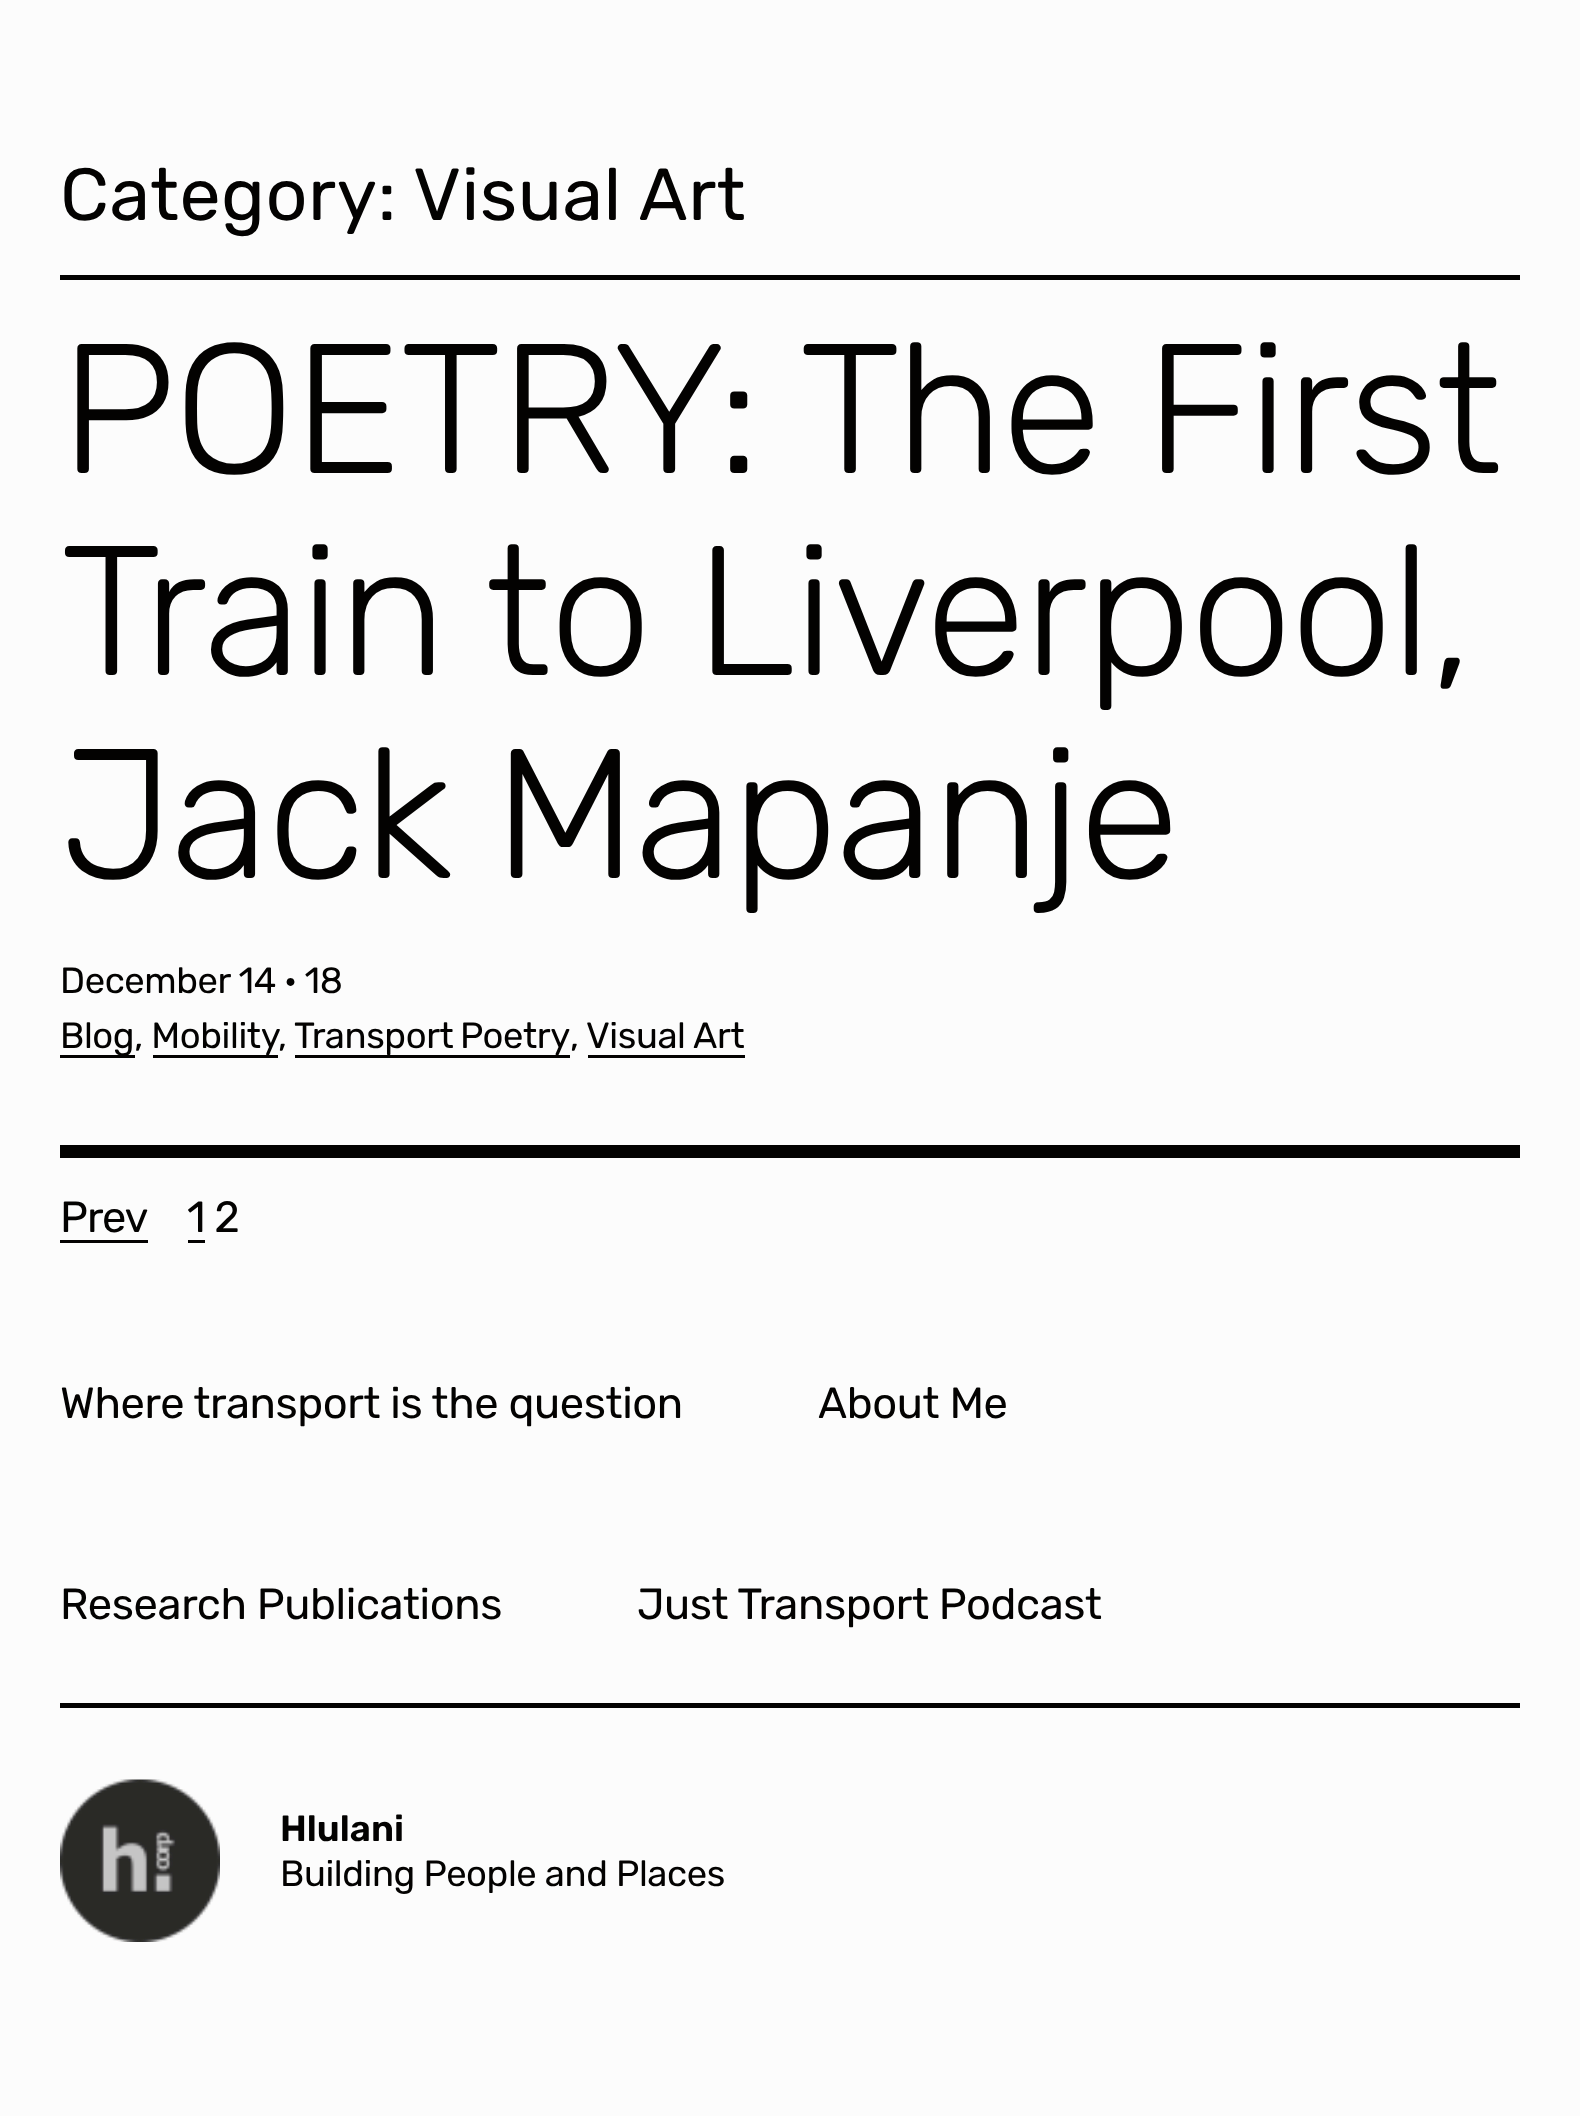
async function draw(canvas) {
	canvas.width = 1580;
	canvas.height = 2116;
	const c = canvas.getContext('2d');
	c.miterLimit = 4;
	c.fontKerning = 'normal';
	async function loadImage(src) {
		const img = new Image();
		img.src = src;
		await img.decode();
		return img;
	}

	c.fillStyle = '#fcfcfc';
	c.fillRect(0, 0, 1580, 2116);
	c.letterSpacing = '0.5px';
	c.font = '73.5px Rubik';
	c.fillStyle = '#030201';
	c.fillText('Category:', 60, 220);
	c.fillText('Visual Art', 413, 220);
	c.fillRect(60, 275, 1460, 5);
	c.letterSpacing = '-2.4px';
	c.font = '300 184.25px Rubik';
	for (const [text, x, y] of [
		['POETRY: The First', 60, 473],
		['Train to Liverpool,', 60, 675],
		['Jack Mapanje', 60, 878],
	]) {
		c.fillText(text, x, y);
	}
	c.letterSpacing = '-0.4px';
	c.font = '36.4px Rubik';
	c.fillText('December 14 · 18', 60, 993);
	c.fillRect(60, 1055, 75, 3);
	c.fillText('Blog, Mobility', 60, 1048);
	c.fillText(',', 278, 1048);
	c.wordSpacing = '-2px';
	c.fillText('Transport Poetry', 294, 1048);
	c.fillRect(295, 1055, 275, 3);
	c.wordSpacing = '0px';
	c.fillText(',', 570, 1048);
	c.fillText('Visual Art', 586, 1048);
	for (const [x, y, w, h, color] of [
		[588, 1055, 157, 3, '#030201'],
		[153, 1055, 125, 3, '#030201'],
		[60, 1145, 1460, 13, '#030201'],
	]) {
		c.fillStyle = color;
		c.fillRect(x, y, w, h);
	}
	c.letterSpacing = '-1px';
	c.font = '43.5px Rubik';
	c.fillText('Prev', 60, 1232);
	c.fillRect(60, 1240, 88, 3);
	c.fillText('1 2', 187, 1232);
	c.fillRect(188, 1240, 17, 3);
	c.letterSpacing = '-0.4px';
	for (const [text, x, y] of [
		['Where transport is the question', 60, 1418],
		['About Me', 818, 1418],
		['Research Publications', 60, 1619],
		['Just Transport Podcast', 637, 1619],
	]) {
		c.fillText(text, x, y);
	}
	c.fillRect(60, 1703, 1460, 5);
	c.drawImage(await loadImage('img1.png'), 60, 1779, 160, 163);
	c.letterSpacing = '0px';
	c.font = '600 36.4px Rubik';
	c.fillText('Hlulani', 280, 1841);
	c.letterSpacing = '-0.4px';
	c.font = '36.4px Rubik';
	c.fillText('Building People and Places', 280, 1886);
}

draw(document.querySelector('canvas'));
